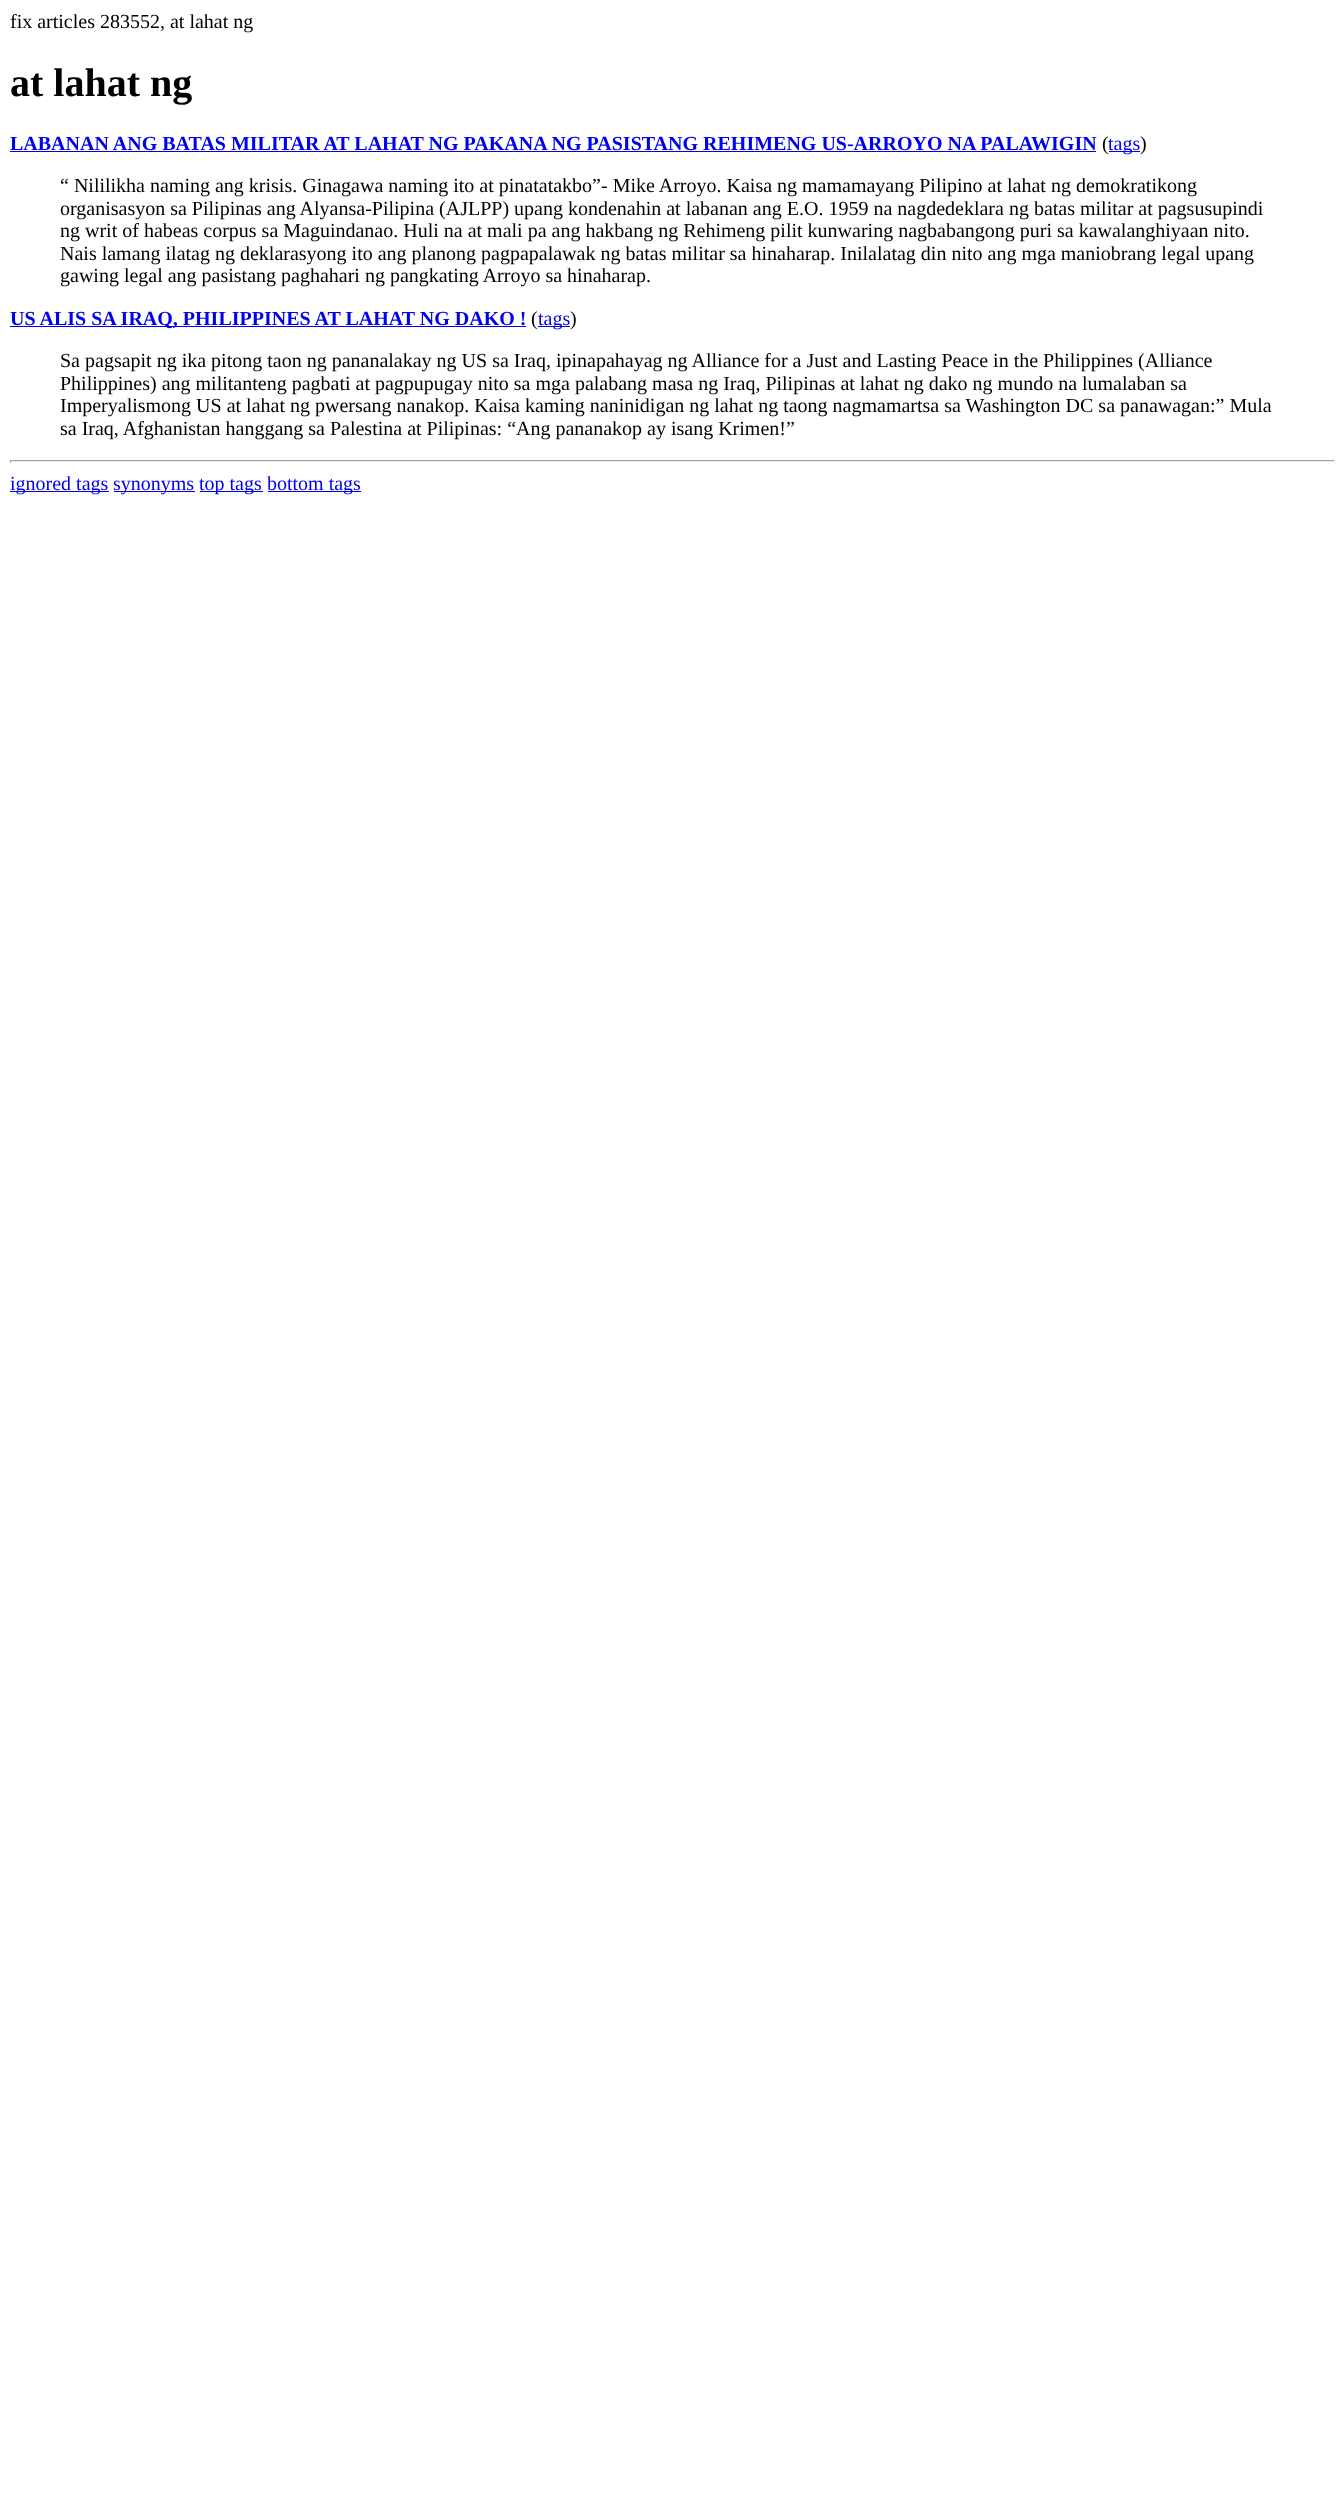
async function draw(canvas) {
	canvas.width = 1344;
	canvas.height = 2518;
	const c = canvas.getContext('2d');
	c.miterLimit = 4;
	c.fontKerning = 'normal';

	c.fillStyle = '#fff';
	c.fillRect(0, 0, 1344, 2518);
	c.font = '20px Liberation Serif';
	c.fillStyle = '#000';
	c.fillText('fix articles 283552, at lahat ng', 10, 28);
	c.font = 'bold 40px Liberation Serif';
	c.fillText('at lahat ng', 10, 96);
	c.font = 'bold 20px Liberation Serif';
	c.fillStyle = '#00e';
	c.fillText('LABANAN ANG BATAS MILITAR AT LAHAT NG PAKANA NG PASISTANG REHIMENG US-ARROYO NA PALAWIGIN', 10, 150);
	c.fillRect(10, 151, 1086, 1);
	c.font = '20px Liberation Serif';
	c.fillStyle = '#000';
	c.fillText('(', 1102, 150);
	c.fillStyle = '#00e';
	c.fillRect(1109, 151, 31, 1);
	c.fillText('tags', 1108, 150);
	c.fillStyle = '#000';
	for (const [text, x, y] of [
		[')', 1140, 150],
		['“ Nililikha naming ang krisis. Ginagawa naming ito at pinatatakbo”- Mike Arroyo. Kaisa ng mamamayang Pilipino at lahat ng demokratikong', 60, 192],
		['organisasyon sa Pilipinas ang Alyansa-Pilipina (AJLPP) upang kondenahin at labanan ang E.O. 1959 na nagdedeklara ng batas militar at pagsusupindi', 60, 215],
		['ng writ of habeas corpus sa Maguindanao. Huli na at mali pa ang hakbang ng Rehimeng pilit kunwaring nagbabangong puri sa kawalanghiyaan nito.', 60, 237],
		['Nais lamang ilatag ng deklarasyong ito ang planong pagpapalawak ng batas militar sa hinaharap. Inilalatag din nito ang mga maniobrang legal upang', 60, 260],
		['gawing legal ang pasistang paghahari ng pangkating Arroyo sa hinaharap.', 60, 282],
	]) {
		c.fillText(text, x, y);
	}
	c.fillStyle = '#00e';
	c.fillRect(10, 326, 516, 1);
	c.font = 'bold 20px Liberation Serif';
	c.fillText('US ALIS SA IRAQ, PHILIPPINES AT LAHAT NG DAKO !', 10, 325);
	c.font = '20px Liberation Serif';
	c.fillStyle = '#000';
	c.fillText('(', 531, 325);
	c.fillStyle = '#00e';
	c.fillRect(538, 326, 32, 1);
	c.fillText('tags', 538, 325);
	c.fillStyle = '#000';
	for (const [text, x, y] of [
		[')', 570, 325],
		['Sa pagsapit ng ika pitong taon ng pananalakay ng US sa Iraq, ipinapahayag ng Alliance for a Just and Lasting Peace in the Philippines (Alliance', 60, 367],
		['Philippines) ang militanteng pagbati at pagpupugay nito sa mga palabang masa ng Iraq, Pilipinas at lahat ng dako ng mundo na lumalaban sa', 60, 390],
		['Imperyalismong US at lahat ng pwersang nanakop. Kaisa kaming naninidigan ng lahat ng taong nagmamartsa sa Washington DC sa panawagan:” Mula', 60, 412],
		['sa Iraq, Afghanistan hanggang sa Palestina at Pilipinas: “Ang pananakop ay isang Krimen!”', 60, 435],
	]) {
		c.fillText(text, x, y);
	}
	for (const [x, y, w, h, color] of [
		[10, 460, 1325, 1, '#9f9f9f'],
		[1334, 460, 1, 3, '#eee'],
		[10, 461, 1325, 1, '#eee'],
		[10, 460, 1, 3, '#9f9f9f'],
		[10, 491, 99, 1, '#00e'],
	]) {
		c.fillStyle = color;
		c.fillRect(x, y, w, h);
	}
	c.fillText('ignored tags', 10, 490);
	c.fillRect(114, 491, 81, 1);
	c.fillText('synonyms', 113, 490);
	c.fillRect(200, 491, 63, 1);
	c.fillText('top tags', 199, 490);
	c.fillRect(268, 491, 93, 1);
	c.fillText('bottom tags', 267, 490);
}

draw(document.querySelector('canvas'));
